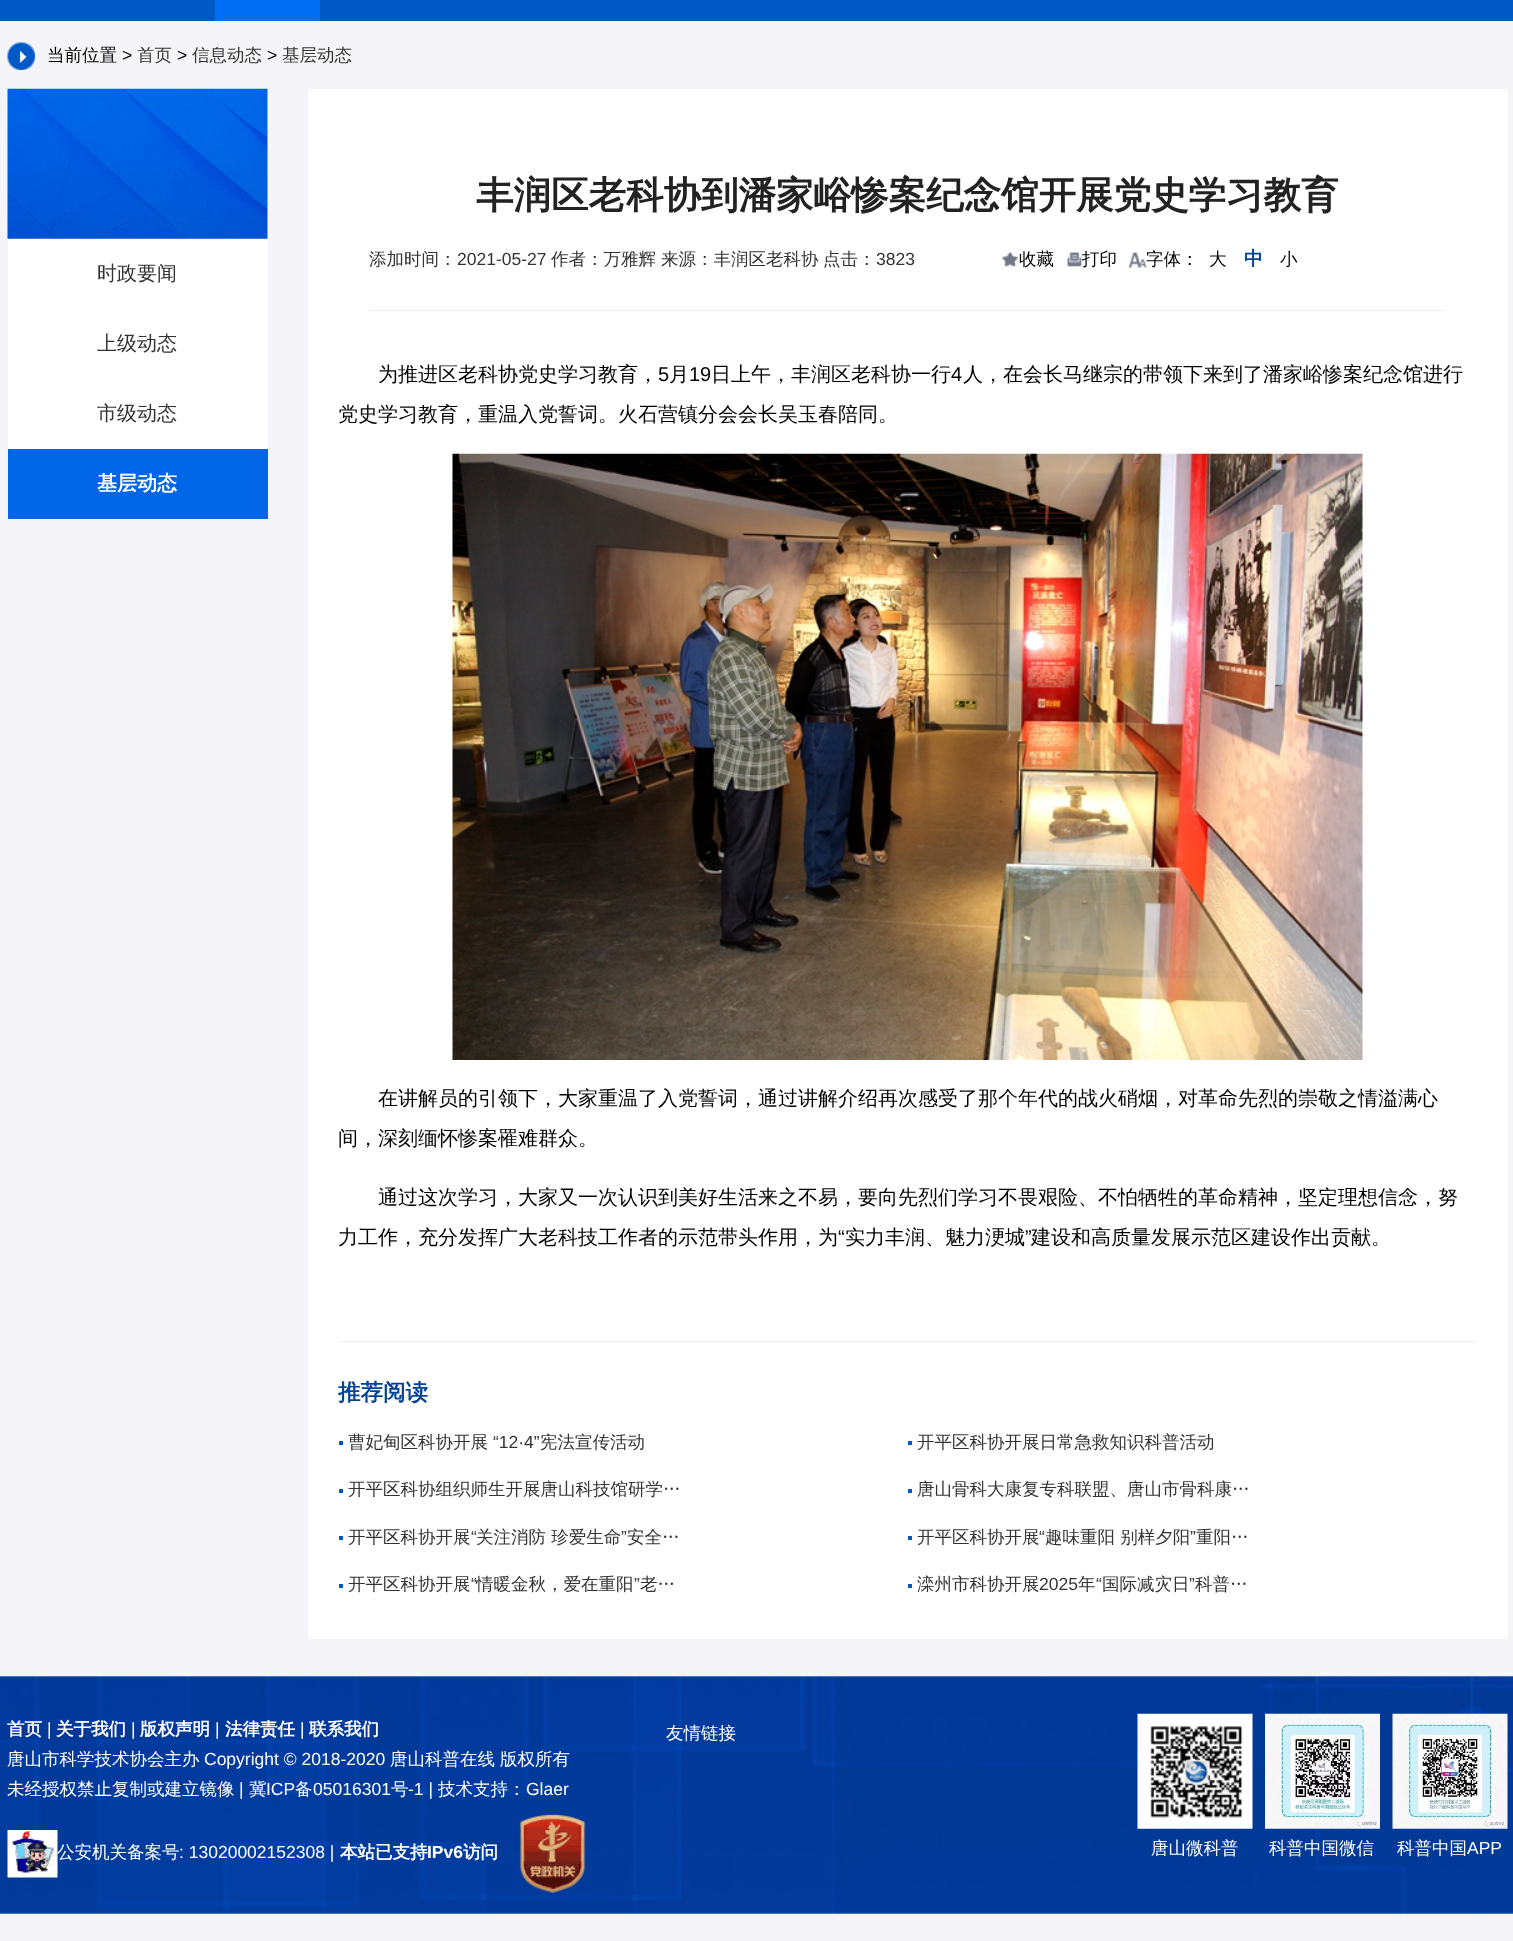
async function draw(canvas) {
	canvas.width = 1513;
	canvas.height = 1941;
	const c = canvas.getContext('2d');
	c.miterLimit = 4;
	c.fontKerning = 'normal';
	async function loadImage(src) {
		const img = new Image();
		img.src = src;
		await img.decode();
		return img;
	}

	c.fillStyle = '#f5f5f9';
	c.fillRect(0, 0, 1513, 1941);
	c.fillStyle = '#0058c5';
	c.fillRect(0, 0, 1513, 21);
	c.fillStyle = '#006ff6';
	c.fillRect(215, 0, 105, 21);
	c.drawImage(await loadImage('img1.png'), 7, 42, 28, 28);
	c.font = '500 17.5px WenQuanYi Zen Hei';
	c.fillStyle = '#000';
	c.fillText('当前位置', 47, 61);
	c.font = '17.5px Liberation Sans';
	c.fillText('>', 122, 61);
	c.font = '500 17.5px WenQuanYi Zen Hei';
	c.fillStyle = '#333';
	c.fillText('首页', 137, 61);
	c.font = '17.5px Liberation Sans';
	c.fillStyle = '#000';
	c.fillText('>', 177, 61);
	c.font = '500 17.5px WenQuanYi Zen Hei';
	c.fillStyle = '#333';
	c.fillText('信息动态', 192, 61);
	c.font = '17.5px Liberation Sans';
	c.fillStyle = '#000';
	c.fillText('>', 267, 61);
	c.font = '500 17.5px WenQuanYi Zen Hei';
	c.fillStyle = '#333';
	c.fillText('基层动态', 282, 61);
	c.fillStyle = '#fff';
	c.fillRect(8, 89, 260, 360);
	c.drawImage(await loadImage('img2.png'), 7, 88, 261, 151);
	c.font = '500 20px WenQuanYi Zen Hei';
	c.fillStyle = '#333';
	for (const [text, x, y] of [
		['时政要闻', 97, 280],
		['上级动态', 97, 350],
		['市级动态', 97, 420],
	]) {
		c.fillText(text, x, y);
	}
	c.fillStyle = '#0066e7';
	c.fillRect(8, 449, 260, 70);
	c.font = 'bold 20px WenQuanYi Zen Hei';
	c.fillStyle = '#fff';
	c.fillText('基层动态', 97, 490);
	c.fillRect(308, 89, 1200, 1550);
	c.fillStyle = '#eee';
	c.fillRect(370, 310, 1075, 1);
	c.font = 'bold 37.5px WenQuanYi Zen Hei';
	c.fillStyle = '#222';
	c.fillText('丰润区老科协到潘家峪惨案纪念馆开展党史学习教育', 476, 208);
	c.font = '500 17.5px WenQuanYi Zen Hei';
	c.fillStyle = '#333';
	c.fillText('添加时间：', 369, 265);
	c.font = '17.5px Liberation Sans';
	c.fillText('2021-05-27', 457, 265);
	c.font = '500 17.5px WenQuanYi Zen Hei';
	for (const [text, x, y] of [
		['作者：万雅辉', 551, 265],
		['来源：丰润区老科协', 661, 265],
		['点击：', 823, 265],
	]) {
		c.fillText(text, x, y);
	}
	c.font = '17.5px Liberation Sans';
	c.fillText('3823', 876, 265);
	c.drawImage(await loadImage('img3.png'), 1002, 252, 16, 15);
	c.font = '500 17.5px WenQuanYi Zen Hei';
	c.fillStyle = '#000';
	c.fillText('收藏', 1019, 265);
	c.drawImage(await loadImage('img4.png'), 1067, 252, 15, 15);
	c.fillText('打印', 1082, 265);
	c.drawImage(await loadImage('img5.png'), 1128, 252, 19, 16);
	c.fillText('字体：', 1146, 265);
	c.fillText('大', 1209, 265);
	c.font = 'bold 19px WenQuanYi Zen Hei';
	c.fillStyle = '#034494';
	c.fillText('中', 1244, 265);
	c.font = '500 17.5px WenQuanYi Zen Hei';
	c.fillStyle = '#000';
	c.fillText('小', 1280, 265);
	c.fillStyle = '#eee';
	c.fillRect(339, 1341, 1137, 1);
	c.font = '500 20px WenQuanYi Zen Hei';
	c.fillStyle = '#000';
	c.fillText('为推进区老科协党史学习教育，', 378, 381);
	c.font = '20px Liberation Sans';
	c.fillText('5', 658, 381);
	c.font = '500 20px WenQuanYi Zen Hei';
	c.fillText('月', 669, 381);
	c.font = '20px Liberation Sans';
	c.fillText('19', 689, 381);
	c.font = '500 20px WenQuanYi Zen Hei';
	c.fillText('日上午，丰润区老科协一行', 711, 381);
	c.font = '20px Liberation Sans';
	c.fillText('4', 951, 381);
	c.font = '500 20px WenQuanYi Zen Hei';
	c.fillText('人，在会长马继宗的带领下来到了潘家峪惨案纪念馆进行', 963, 381);
	c.fillText('党史学习教育，重温入党誓词。火石营镇分会会长吴玉春陪同。', 338, 421);
	c.drawImage(await loadImage('img6.png'), 452, 453, 911, 607);
	for (const [text, x, y] of [
		['在讲解员的引领下，大家重温了入党誓词，通过讲解介绍再次感受了那个年代的战火硝烟，对革命先烈的崇敬之情溢满心', 378, 1105],
		['间，深刻缅怀惨案罹难群众。', 338, 1145],
		['通过这次学习，大家又一次认识到美好生活来之不易，要向先烈们学习不畏艰险、不怕牺牲的革命精神，坚定理想信念，努', 378, 1204],
		['力工作，充分发挥广大老科技工作者的示范带头作用，为', 338, 1244],
	]) {
		c.fillText(text, x, y);
	}
	c.font = '20px Liberation Sans';
	c.fillText('“', 838, 1244);
	c.font = '500 20px WenQuanYi Zen Hei';
	c.fillText('实力丰润、魅力浭城', 845, 1244);
	c.font = '20px Liberation Sans';
	c.fillText('”', 1025, 1244);
	c.font = '500 20px WenQuanYi Zen Hei';
	c.fillText('建设和高质量发展示范区建设作出贡献。', 1031, 1244);
	c.font = 'bold 22.5px WenQuanYi Zen Hei';
	c.fillStyle = '#034494';
	c.fillText('推荐阅读', 338, 1400);
	c.fillStyle = '#0058c5';
	c.fillRect(339, 1441, 4, 4);
	c.font = '500 17.5px WenQuanYi Zen Hei';
	c.fillStyle = '#333';
	c.fillText('曹妃甸区科协开展', 348, 1448);
	c.font = '17.5px Liberation Sans';
	c.fillText('“12·4”', 493, 1448);
	c.font = '500 17.5px WenQuanYi Zen Hei';
	c.fillText('宪法宣传活动', 540, 1448);
	c.fillStyle = '#0058c5';
	c.fillRect(908, 1441, 4, 4);
	c.fillStyle = '#333';
	c.fillText('开平区科协开展日常急救知识科普活动', 917, 1448);
	c.fillStyle = '#0058c5';
	c.fillRect(339, 1489, 4, 4);
	c.fillStyle = '#333';
	c.fillText('开平区科协组织师生开展唐山科技馆研学…', 348, 1495);
	c.fillStyle = '#0058c5';
	c.fillRect(908, 1489, 4, 4);
	c.fillStyle = '#333';
	c.fillText('唐山骨科大康复专科联盟、唐山市骨科康…', 917, 1495);
	c.fillText('开平区科协开展', 348, 1543);
	c.font = '17.5px Liberation Sans';
	c.fillText('“', 471, 1543);
	c.font = '500 17.5px WenQuanYi Zen Hei';
	c.fillText('关注消防 珍爱生命', 476, 1543);
	c.font = '17.5px Liberation Sans';
	c.fillText('”', 621, 1543);
	c.font = '500 17.5px WenQuanYi Zen Hei';
	c.fillText('安全…', 627, 1543);
	c.fillStyle = '#0058c5';
	c.fillRect(339, 1536, 4, 4);
	c.fillStyle = '#333';
	c.fillText('开平区科协开展', 917, 1543);
	c.font = '17.5px Liberation Sans';
	c.fillText('“', 1039, 1543);
	c.font = '500 17.5px WenQuanYi Zen Hei';
	c.fillText('趣味重阳 别样夕阳', 1045, 1543);
	c.font = '17.5px Liberation Sans';
	c.fillText('”', 1190, 1543);
	c.font = '500 17.5px WenQuanYi Zen Hei';
	c.fillText('重阳…', 1196, 1543);
	c.fillStyle = '#0058c5';
	c.fillRect(908, 1536, 4, 4);
	c.fillStyle = '#333';
	c.fillText('开平区科协开展', 348, 1590);
	c.font = '17.5px Liberation Sans';
	c.fillText('“', 471, 1590);
	c.font = '500 17.5px WenQuanYi Zen Hei';
	c.fillText('情暖金秋，爱在重阳', 476, 1590);
	c.font = '17.5px Liberation Sans';
	c.fillText('”', 634, 1590);
	c.font = '500 17.5px WenQuanYi Zen Hei';
	c.fillText('老…', 640, 1590);
	c.fillStyle = '#0058c5';
	c.fillRect(339, 1584, 4, 4);
	c.fillStyle = '#333';
	c.fillText('滦州市科协开展', 917, 1590);
	c.font = '17.5px Liberation Sans';
	c.fillText('2025', 1039, 1590);
	c.font = '500 17.5px WenQuanYi Zen Hei';
	c.fillText('年', 1078, 1590);
	c.font = '17.5px Liberation Sans';
	c.fillText('“', 1096, 1590);
	c.font = '500 17.5px WenQuanYi Zen Hei';
	c.fillText('国际减灾日', 1102, 1590);
	c.font = '17.5px Liberation Sans';
	c.fillText('”', 1189, 1590);
	c.font = '500 17.5px WenQuanYi Zen Hei';
	c.fillText('科普…', 1195, 1590);
	c.fillStyle = '#0058c5';
	c.fillRect(908, 1584, 4, 4);
	c.drawImage(await loadImage('img7.png'), 0, 1676, 1513, 238);
	c.font = 'bold 17.5px WenQuanYi Zen Hei';
	c.fillStyle = '#fff';
	c.fillText('首页', 7, 1735);
	c.font = '17.5px Liberation Sans';
	c.fillText('|', 47, 1735);
	c.font = 'bold 17.5px WenQuanYi Zen Hei';
	c.fillText('关于我们', 56, 1735);
	c.font = '17.5px Liberation Sans';
	c.fillText('|', 131, 1735);
	c.font = 'bold 17.5px WenQuanYi Zen Hei';
	c.fillText('版权声明', 140, 1735);
	c.font = '17.5px Liberation Sans';
	c.fillText('|', 215, 1735);
	c.font = 'bold 17.5px WenQuanYi Zen Hei';
	c.fillText('法律责任', 225, 1735);
	c.font = '17.5px Liberation Sans';
	c.fillText('|', 300, 1735);
	c.font = 'bold 17.5px WenQuanYi Zen Hei';
	c.fillText('联系我们', 309, 1735);
	c.font = '500 17.5px WenQuanYi Zen Hei';
	c.fillText('唐山市科学技术协会主办', 7, 1765);
	c.font = '17.5px Liberation Sans';
	c.fillText('Copyright © 2018-2020', 204, 1765);
	c.font = '500 17.5px WenQuanYi Zen Hei';
	for (const [text, x, y] of [
		['唐山科普在线', 390, 1765],
		['版权所有', 500, 1765],
		['未经授权禁止复制或建立镜像', 7, 1795],
	]) {
		c.fillText(text, x, y);
	}
	c.font = '17.5px Liberation Sans';
	c.fillText('|', 239, 1795);
	c.font = '500 17.5px WenQuanYi Zen Hei';
	c.fillText('冀', 249, 1795);
	c.font = '17.5px Liberation Sans';
	c.fillText('ICP', 266, 1795);
	c.font = '500 17.5px WenQuanYi Zen Hei';
	c.fillText('备', 295, 1795);
	c.font = '17.5px Liberation Sans';
	c.fillText('05016301', 313, 1795);
	c.font = '500 17.5px WenQuanYi Zen Hei';
	c.fillText('号', 391, 1795);
	c.font = '17.5px Liberation Sans';
	c.fillText('-1 |', 408, 1795);
	c.font = '500 17.5px WenQuanYi Zen Hei';
	c.fillText('技术支持：', 438, 1795);
	c.font = '17.5px Liberation Sans';
	c.fillText('Glaer', 526, 1795);
	c.drawImage(await loadImage('img8.png'), 7, 1830, 51, 48);
	c.font = '500 17.5px WenQuanYi Zen Hei';
	c.fillText('公安机关备案号', 57, 1858);
	c.font = '17.5px Liberation Sans';
	c.fillText(': 13020002152308 |', 179, 1858);
	c.font = 'bold 17.5px WenQuanYi Zen Hei';
	c.fillText('本站已支持', 340, 1858);
	c.font = 'bold 17.5px Liberation Sans';
	c.fillText('IPv6', 427, 1858);
	c.font = 'bold 17.5px WenQuanYi Zen Hei';
	c.fillText('访问', 463, 1858);
	c.drawImage(await loadImage('img9.png'), 519, 1814, 67, 80);
	c.font = '500 17.5px WenQuanYi Zen Hei';
	c.fillText('友情链接', 666, 1739);
	c.drawImage(await loadImage('img10.png'), 1137, 1713, 116, 116);
	c.fillText('唐山微科普', 1151, 1854);
	c.drawImage(await loadImage('img11.png'), 1265, 1713, 115, 116);
	c.fillText('科普中国微信', 1269, 1854);
	c.drawImage(await loadImage('img12.png'), 1392, 1713, 116, 116);
	c.fillText('科普中国', 1397, 1854);
	c.font = '17.5px Liberation Sans';
	c.fillText('APP', 1467, 1854);
}

draw(document.querySelector('canvas'));
